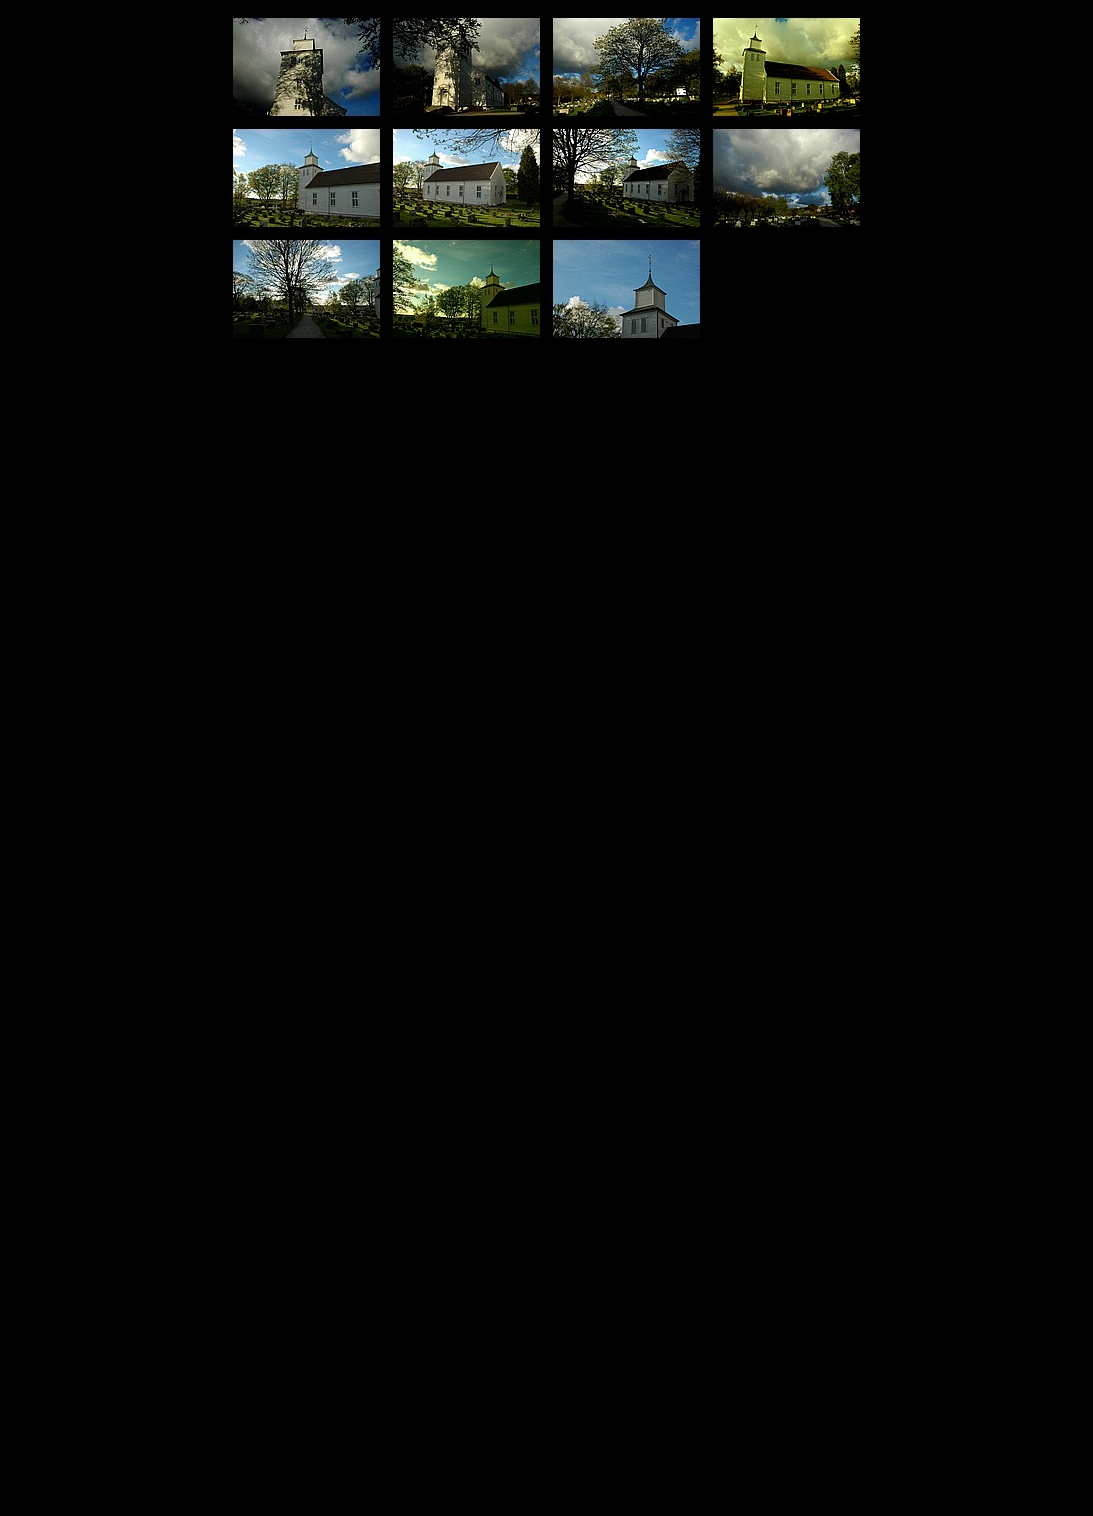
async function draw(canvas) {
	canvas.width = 1093;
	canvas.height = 1516;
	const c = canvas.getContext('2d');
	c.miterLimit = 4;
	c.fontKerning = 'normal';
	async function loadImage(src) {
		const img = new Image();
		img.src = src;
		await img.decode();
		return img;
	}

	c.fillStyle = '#000';
	c.fillRect(0, 0, 1093, 1516);
	c.drawImage(await loadImage('img1.png'), 232, 17, 149, 100);
	c.drawImage(await loadImage('img2.png'), 392, 17, 149, 100);
	c.drawImage(await loadImage('img3.png'), 552, 17, 149, 100);
	c.drawImage(await loadImage('img4.png'), 712, 17, 149, 100);
	c.drawImage(await loadImage('img5.png'), 232, 128, 149, 100);
	c.drawImage(await loadImage('img6.png'), 392, 128, 149, 100);
	c.drawImage(await loadImage('img7.png'), 552, 128, 149, 100);
	c.drawImage(await loadImage('img8.png'), 712, 128, 149, 100);
	c.drawImage(await loadImage('img9.png'), 232, 239, 149, 100);
	c.drawImage(await loadImage('img10.png'), 392, 239, 149, 100);
	c.drawImage(await loadImage('img11.png'), 552, 239, 149, 100);
}

draw(document.querySelector('canvas'));
